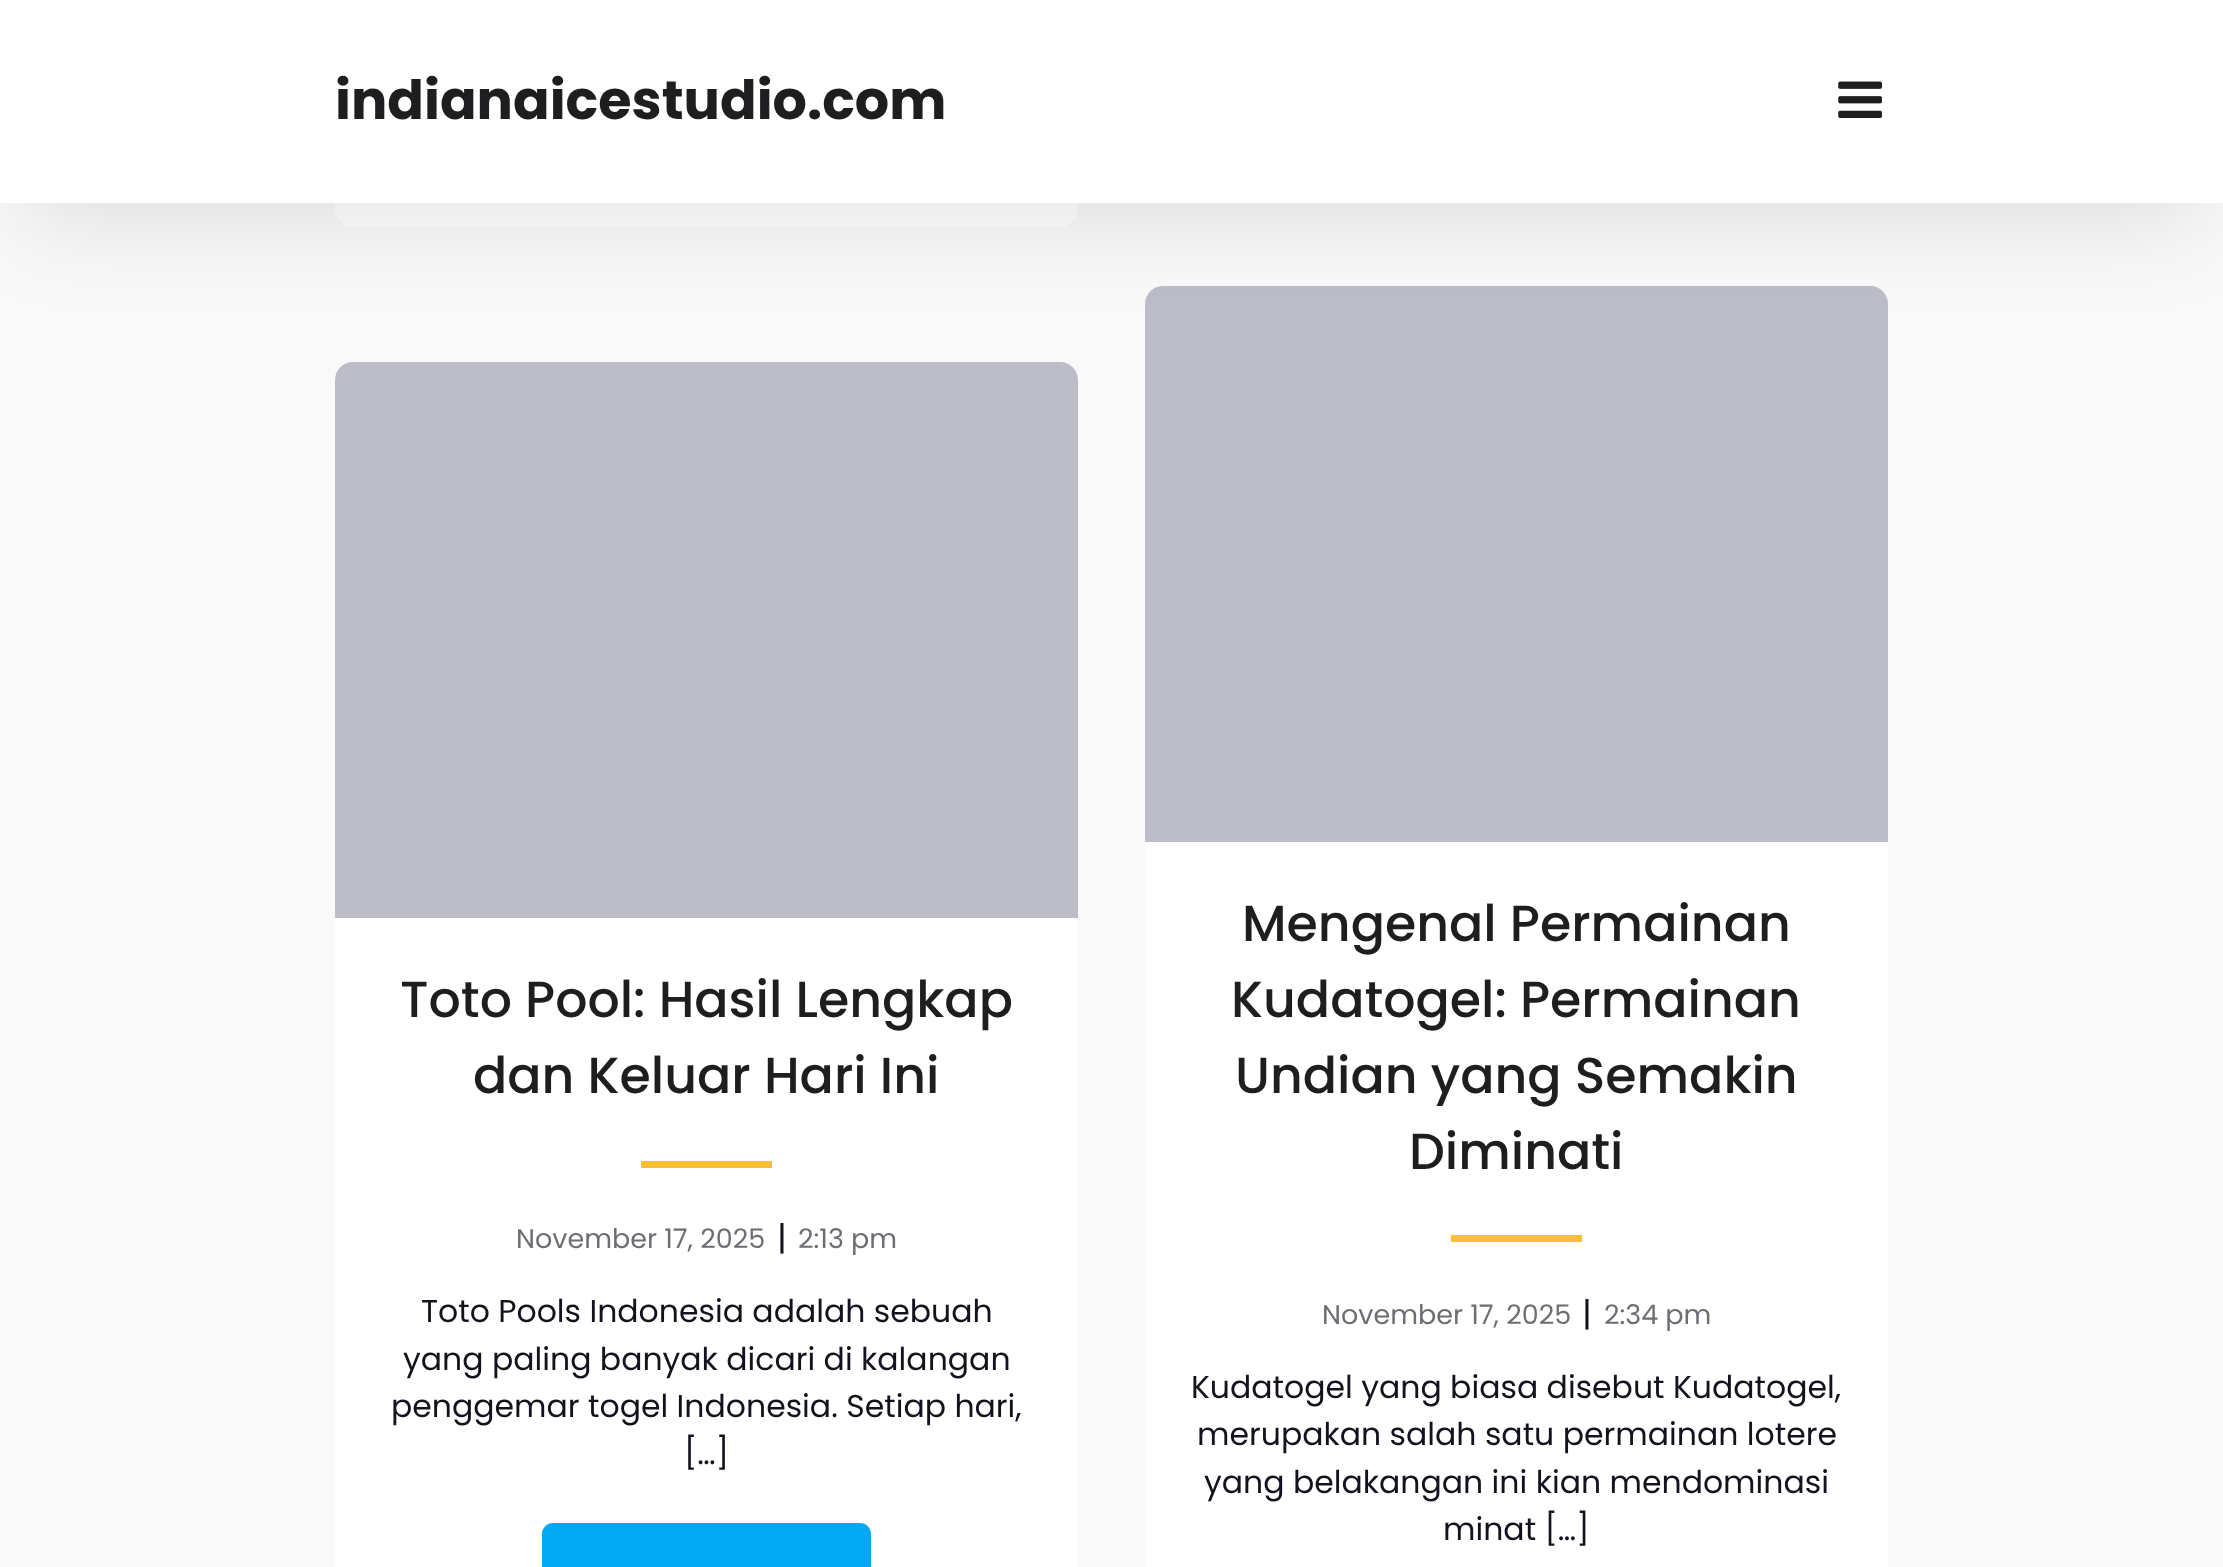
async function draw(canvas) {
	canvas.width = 2223;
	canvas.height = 1567;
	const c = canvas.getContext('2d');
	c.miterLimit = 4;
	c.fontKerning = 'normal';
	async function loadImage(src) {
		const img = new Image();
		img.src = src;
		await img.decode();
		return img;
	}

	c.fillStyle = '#f9f9fa';
	c.fillRect(0, 0, 2223, 1567);
	c.fillStyle = '#fff';
	c.beginPath();
	c.roundRect(335, -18, 743, 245, 18);
	c.fill();
	c.beginPath();
	c.roundRect(1145, 286, 743, 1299, 18);
	c.fill();
	c.fillStyle = '#bdbdc9';
	c.beginPath();
	c.roundRect(1145, 286, 743, 556, [18, 18, 0, 0]);
	c.fill();
	c.fillStyle = '#0000001a';
	c.filter = 'blur(45px)';
	c.beginPath();
	c.rect(23, 65, 2178, 158);
	c.fill();
	c.filter = 'none';
	c.fillStyle = '#fff';
	c.fillRect(0, 0, 2223, 203);
	c.font = 'bold 54px Poppins';
	c.fillStyle = '#1e1e20';
	c.fillText('indianaicestudio.com', 335, 119);
	c.drawImage(await loadImage('img1.png'), 1838, 81, 44, 37);
	c.fillStyle = '#fff';
	c.beginPath();
	c.roundRect(335, 362, 743, 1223, 18);
	c.fill();
	c.fillStyle = '#bdbdc9';
	c.beginPath();
	c.roundRect(335, 362, 743, 556, [18, 18, 0, 0]);
	c.fill();
	c.font = '500 50.6px Poppins';
	c.fillStyle = '#1e1e20';
	c.fillText('Toto Pool: Hasil Lengkap', 400, 1017);
	c.fillText('dan Keluar Hari Ini', 473, 1093);
	c.fillStyle = '#fbc02d';
	c.fillRect(641, 1161, 131, 7);
	c.font = '27px Poppins';
	c.fillStyle = '#6d6d74';
	c.fillText('November 17, 2025', 516, 1248);
	c.font = '34px Poppins';
	c.fillStyle = '#13131f';
	c.fillText('|', 777, 1250);
	c.font = '27px Poppins';
	c.fillStyle = '#6d6d74';
	c.fillText('2:13 pm', 798, 1248);
	c.font = '31.5px Poppins';
	c.fillStyle = '#13131f';
	for (const [text, x, y] of [
		['Toto Pools Indonesia adalah sebuah', 421, 1322],
		['yang paling banyak dicari di kalangan', 403, 1370],
		['penggemar togel Indonesia. Setiap hari,', 391, 1417],
		['[…]', 684, 1464],
	]) {
		c.fillText(text, x, y);
	}
	c.fillStyle = '#03a9f4';
	c.beginPath();
	c.roundRect(542, 1523, 329, 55, 11);
	c.fill();
	c.font = '500 50.6px Poppins';
	c.fillStyle = '#1e1e20';
	for (const [text, x, y] of [
		['Mengenal Permainan', 1242, 941],
		['Kudatogel: Permainan', 1231, 1017],
		['Undian yang Semakin', 1235, 1093],
		['Diminati', 1409, 1169],
	]) {
		c.fillText(text, x, y);
	}
	c.fillStyle = '#fbc02d';
	c.fillRect(1451, 1235, 131, 7);
	c.font = '27px Poppins';
	c.fillStyle = '#6d6d74';
	c.fillText('November 17, 2025', 1322, 1324);
	c.font = '34px Poppins';
	c.fillStyle = '#13131f';
	c.fillText('|', 1582, 1326);
	c.font = '27px Poppins';
	c.fillStyle = '#6d6d74';
	c.fillText('2:34 pm', 1604, 1324);
	c.font = '31.5px Poppins';
	c.fillStyle = '#13131f';
	for (const [text, x, y] of [
		['Kudatogel yang biasa disebut Kudatogel,', 1191, 1398],
		['merupakan salah satu permainan lotere', 1197, 1445],
		['yang belakangan ini kian mendominasi', 1204, 1493],
		['minat […]', 1443, 1540],
	]) {
		c.fillText(text, x, y);
	}
}

draw(document.querySelector('canvas'));
